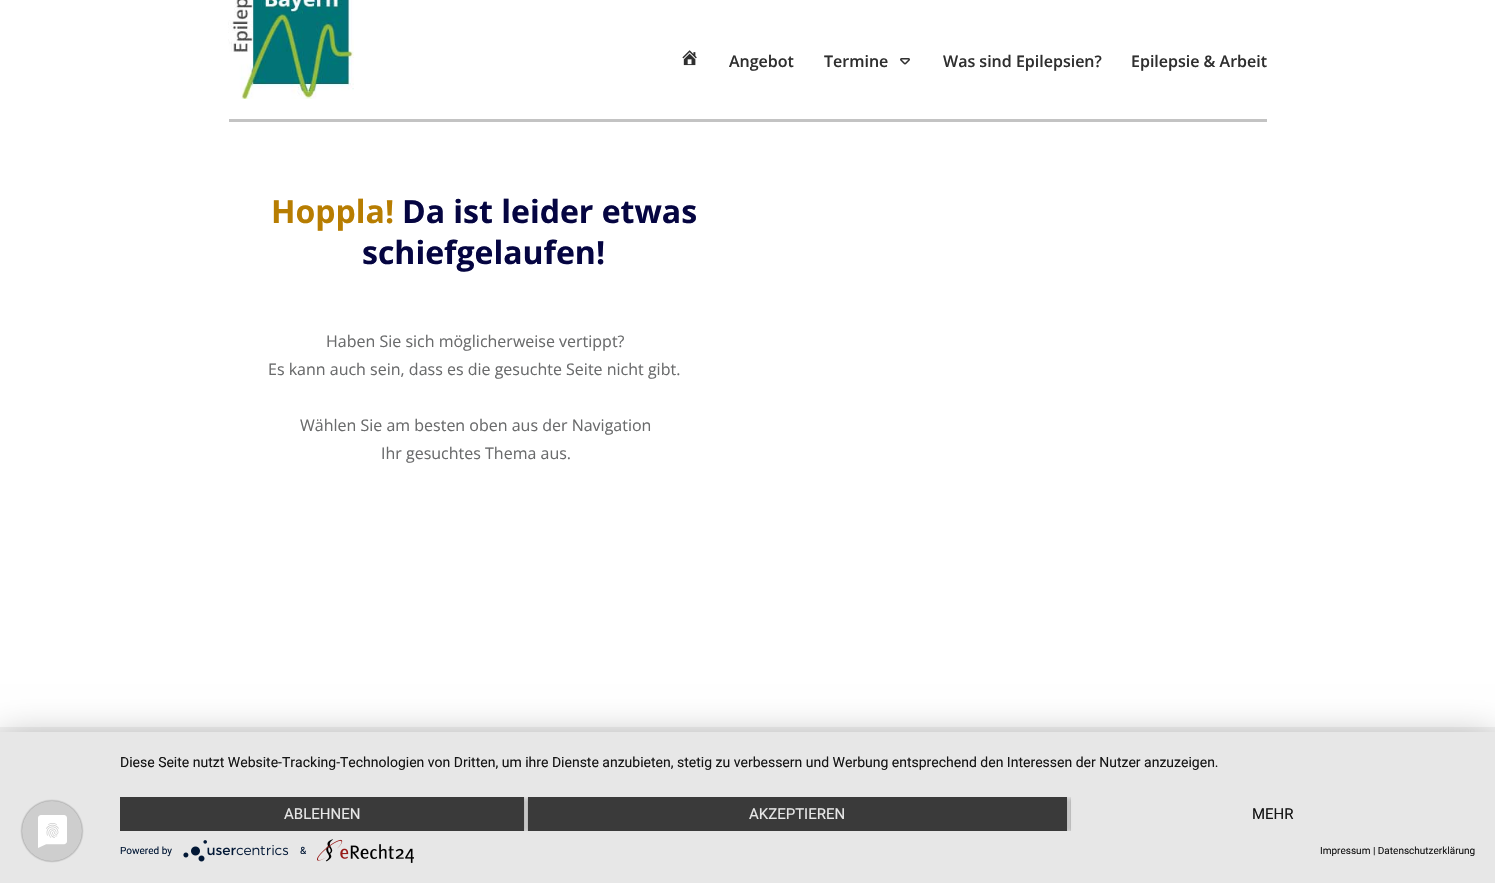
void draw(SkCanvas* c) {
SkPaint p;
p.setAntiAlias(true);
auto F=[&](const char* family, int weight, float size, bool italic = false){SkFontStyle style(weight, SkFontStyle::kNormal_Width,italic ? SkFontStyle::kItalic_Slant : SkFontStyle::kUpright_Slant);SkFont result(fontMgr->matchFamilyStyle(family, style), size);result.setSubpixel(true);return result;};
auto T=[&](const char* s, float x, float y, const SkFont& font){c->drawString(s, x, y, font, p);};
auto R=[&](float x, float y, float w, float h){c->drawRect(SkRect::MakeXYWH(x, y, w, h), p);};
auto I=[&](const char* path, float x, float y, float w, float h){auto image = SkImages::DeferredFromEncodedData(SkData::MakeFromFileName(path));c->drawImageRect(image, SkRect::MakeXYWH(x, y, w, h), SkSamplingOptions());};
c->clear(0xffffffff);
I("1.png",228,0,126,99);
I("2.png",682,50,15,16);
auto f1 = F("Open Sans",600,16);
p.setColor(0xff2f2f2f);
T("Angebot",729,67,f1);
T("Termine",824,67,f1);
I("3.png",900,58,10,7);
T("Was sind Epilepsien?",943,67,f1);
T("Epilepsie & Arbeit",1131,67,f1);
p.setColor(0xffc3c3c3);
R(229,119,1038,3);
auto f2 = F("Open Sans",700,32);
p.setColor(0xffb77d01);
T("Hoppla!",271,223,f2);
p.setColor(0xff050541);
T("Da ist leider etwas",402,223,f2);
T("schiefgelaufen!",362,264,f2);
auto f3 = F("Open Sans",400,16);
p.setColor(0xff6a6b6c);
T("Haben Sie sich möglicherweise vertippt?",326,347,f3);
T("Es kann auch sein, dass es die gesuchte Seite nicht gibt.",268,375,f3);
T("Wählen Sie am besten oben aus der Navigation",300,431,f3);
T("Ihr gesuchtes Thema aus.",381,459,f3);
p.setColor(0xfff2f2f2);
R(0,727,1495,5);
p.setColor(0x4d000000);
p.setMaskFilter(SkMaskFilter::MakeBlur(kNormal_SkBlurStyle, 18));
c->drawRect(SkRect::MakeXYWH(0,738,1495,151),p);
p.setMaskFilter(nullptr);
p.setColor(0xffe7e7e7);
R(0,732,1495,151);
I("4.png",20,799,64,64);
auto f4 = F("Roboto",400,14);
p.setColor(0xff161616);
T("Diese Seite nutzt Website-Tracking-Technologien von Dritten, um ihre Dienste anzubieten, stetig zu verbessern und Werbung entsprechend den Interessen der Nutzer anzuzeigen.",120,767,f4);
c->save();
c->clipRect(SkRect::MakeXYWH(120,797,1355,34));
p.setColor(0x66000000);
p.setMaskFilter(SkMaskFilter::MakeBlur(kNormal_SkBlurStyle, 2));
c->drawRect(SkRect::MakeXYWH(120,798,404,34),p);
p.setMaskFilter(nullptr);
c->restore();
p.setColor(0xff3a3a3a);
R(120,797,404,34);
auto f5 = F("Roboto",400,15);
p.setColor(0xffe7e7e7);
T("ABLEHNEN",284,819,f5);
c->save();
c->clipRect(SkRect::MakeXYWH(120,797,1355,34));
p.setColor(0x66000000);
p.setMaskFilter(SkMaskFilter::MakeBlur(kNormal_SkBlurStyle, 2));
c->drawRect(SkRect::MakeXYWH(528,798,539,34),p);
p.setMaskFilter(nullptr);
c->restore();
p.setColor(0xff3a3a3a);
R(528,797,539,34);
p.setColor(0xffe7e7e7);
T("AKZEPTIEREN",749,819,f5);
c->save();
c->clipRect(SkRect::MakeXYWH(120,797,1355,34));
c->clipRect(SkRect::MakeXYWH(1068,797,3,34));
p.setColor(0x66000000);
p.setMaskFilter(SkMaskFilter::MakeBlur(kNormal_SkBlurStyle, 2));
c->drawRect(SkRect::MakeXYWH(1071,798,404,34),p);
p.setMaskFilter(nullptr);
c->restore();
p.setColor(0xff161616);
T("MEHR",1252,819,f5);
auto f6 = F("Roboto",400,10);
p.setColor(0xff021836);
T("Powered by",120,854,f6);
I("5.png",183,840,106,22);
T("&",300,854,f6);
I("6.png",317,839,97,24);
p.setColor(0xff161616);
T("Impressum | Datenschutzerklärung",1320,854,f6);
}
